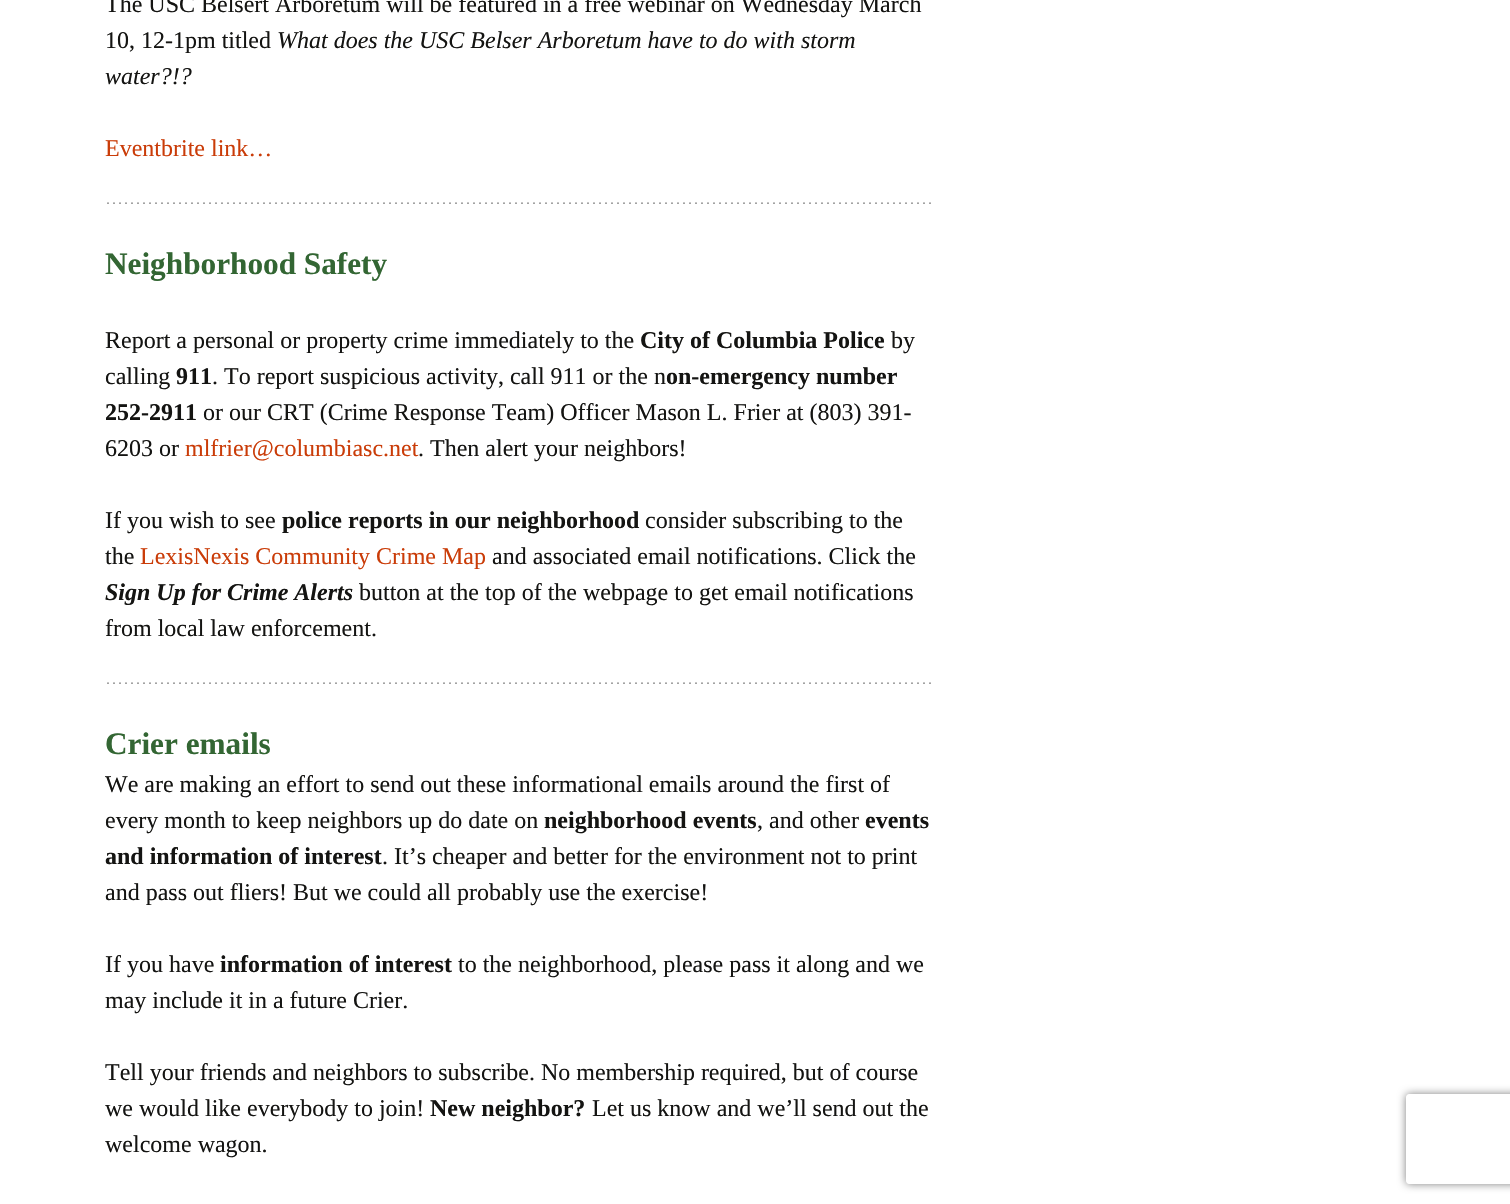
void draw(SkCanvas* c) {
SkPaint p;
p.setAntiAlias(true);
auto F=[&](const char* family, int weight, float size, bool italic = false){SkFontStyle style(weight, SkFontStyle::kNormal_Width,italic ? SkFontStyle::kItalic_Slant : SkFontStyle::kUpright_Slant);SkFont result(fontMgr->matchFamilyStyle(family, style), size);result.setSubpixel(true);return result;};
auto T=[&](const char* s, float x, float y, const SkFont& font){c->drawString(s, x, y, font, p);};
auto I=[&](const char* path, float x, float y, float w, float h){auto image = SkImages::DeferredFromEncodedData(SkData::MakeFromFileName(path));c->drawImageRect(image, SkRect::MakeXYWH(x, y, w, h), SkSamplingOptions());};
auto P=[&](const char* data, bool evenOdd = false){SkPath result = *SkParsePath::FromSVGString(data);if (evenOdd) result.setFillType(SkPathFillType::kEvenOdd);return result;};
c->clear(0xffffffff);
auto f1 = F("Liberation Serif",400,24);
p.setColor(0xff141412);
T("The USC Belsert Arboretum will be featured in a free webinar on Wednesday March",105,12,f1);
T("10, 12-1pm titled",105,48,f1);
auto f2 = F("Liberation Serif",400,24,true);
T("What does the USC Belser Arboretum have to do with storm",277,48,f2);
T("water?!?",105,84,f2);
p.setColor(0xffca3c08);
T("Eventbrite link…",105,156,f1);
I("1.png",107,202,824,2);
auto f3 = F("Liberation Serif",700,31.25);
p.setColor(0xff336633);
T("Neighborhood Safety",105,274,f3);
p.setColor(0xff141412);
T("Report a personal or property crime immediately to the",105,348,f1);
auto f4 = F("Liberation Serif",700,24);
T("City of Columbia Police",640,348,f4);
T("by",891,348,f1);
T("calling",105,384,f1);
T("911",176,384,f4);
T(". To report suspicious activity, call 911 or the n",212,384,f1);
T("on-emergency number",666,384,f4);
T("252-2911",105,420,f4);
T("or our CRT (Crime Response Team) Officer Mason L. Frier at (803) 391-",203,420,f1);
T("6203 or",105,456,f1);
p.setColor(0xffca3c08);
T("mlfrier@columbiasc.net",185,456,f1);
p.setColor(0xff141412);
T(". Then alert your neighbors!",418,456,f1);
T("If you wish to see",105,528,f1);
T("police reports in our neighborhood",282,528,f4);
T("consider subscribing to the",645,528,f1);
T("the",105,564,f1);
p.setColor(0xffca3c08);
T("LexisNexis Community Crime Map",140,564,f1);
p.setColor(0xff141412);
T("and associated email notifications. Click the",492,564,f1);
auto f5 = F("Liberation Serif",700,24,true);
T("Sign Up for Crime Alerts",105,600,f5);
T("button at the top of the webpage to get email notifications",359,600,f1);
T("from local law enforcement.",105,636,f1);
I("1.png",107,682,824,2);
p.setColor(0xff336633);
T("Crier emails",105,754,f3);
p.setColor(0xff141412);
T("We are making an effort to send out these informational emails around the first of",105,792,f1);
T("every month to keep neighbors up do date on",105,828,f1);
T("neighborhood events",544,828,f4);
T(", and other",757,828,f1);
T("events",865,828,f4);
T("and information of interest",105,864,f4);
T(". It’s cheaper and better for the environment not to print",382,864,f1);
T("and pass out fliers! But we could all probably use the exercise!",105,900,f1);
T("If you have",105,972,f1);
T("information of interest",220,972,f4);
T("to the neighborhood, please pass it along and we",458,972,f1);
T("may include it in a future Crier.",105,1008,f1);
T("Tell your friends and neighbors to subscribe. No membership required, but of course",105,1080,f1);
T("we would like everybody to join!",105,1116,f1);
T("New neighbor?",430,1116,f4);
T("Let us know and we’ll send out the",592,1116,f1);
T("welcome wagon.",105,1152,f1);
c->save();
c->clipPath(P("M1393 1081h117v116h-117zm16 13h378c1.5 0 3 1.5 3 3v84c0 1.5-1.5 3-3 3h-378c-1.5 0-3-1.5-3-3v-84c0-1.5 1.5-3 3-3z",true),true);
p.setColor(0xff808080);
p.setMaskFilter(SkMaskFilter::MakeBlur(kNormal_SkBlurStyle, 4));
c->drawRoundRect(SkRect::MakeXYWH(1406,1094,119,90),3,3,p);
p.setMaskFilter(nullptr);
c->restore();
}
